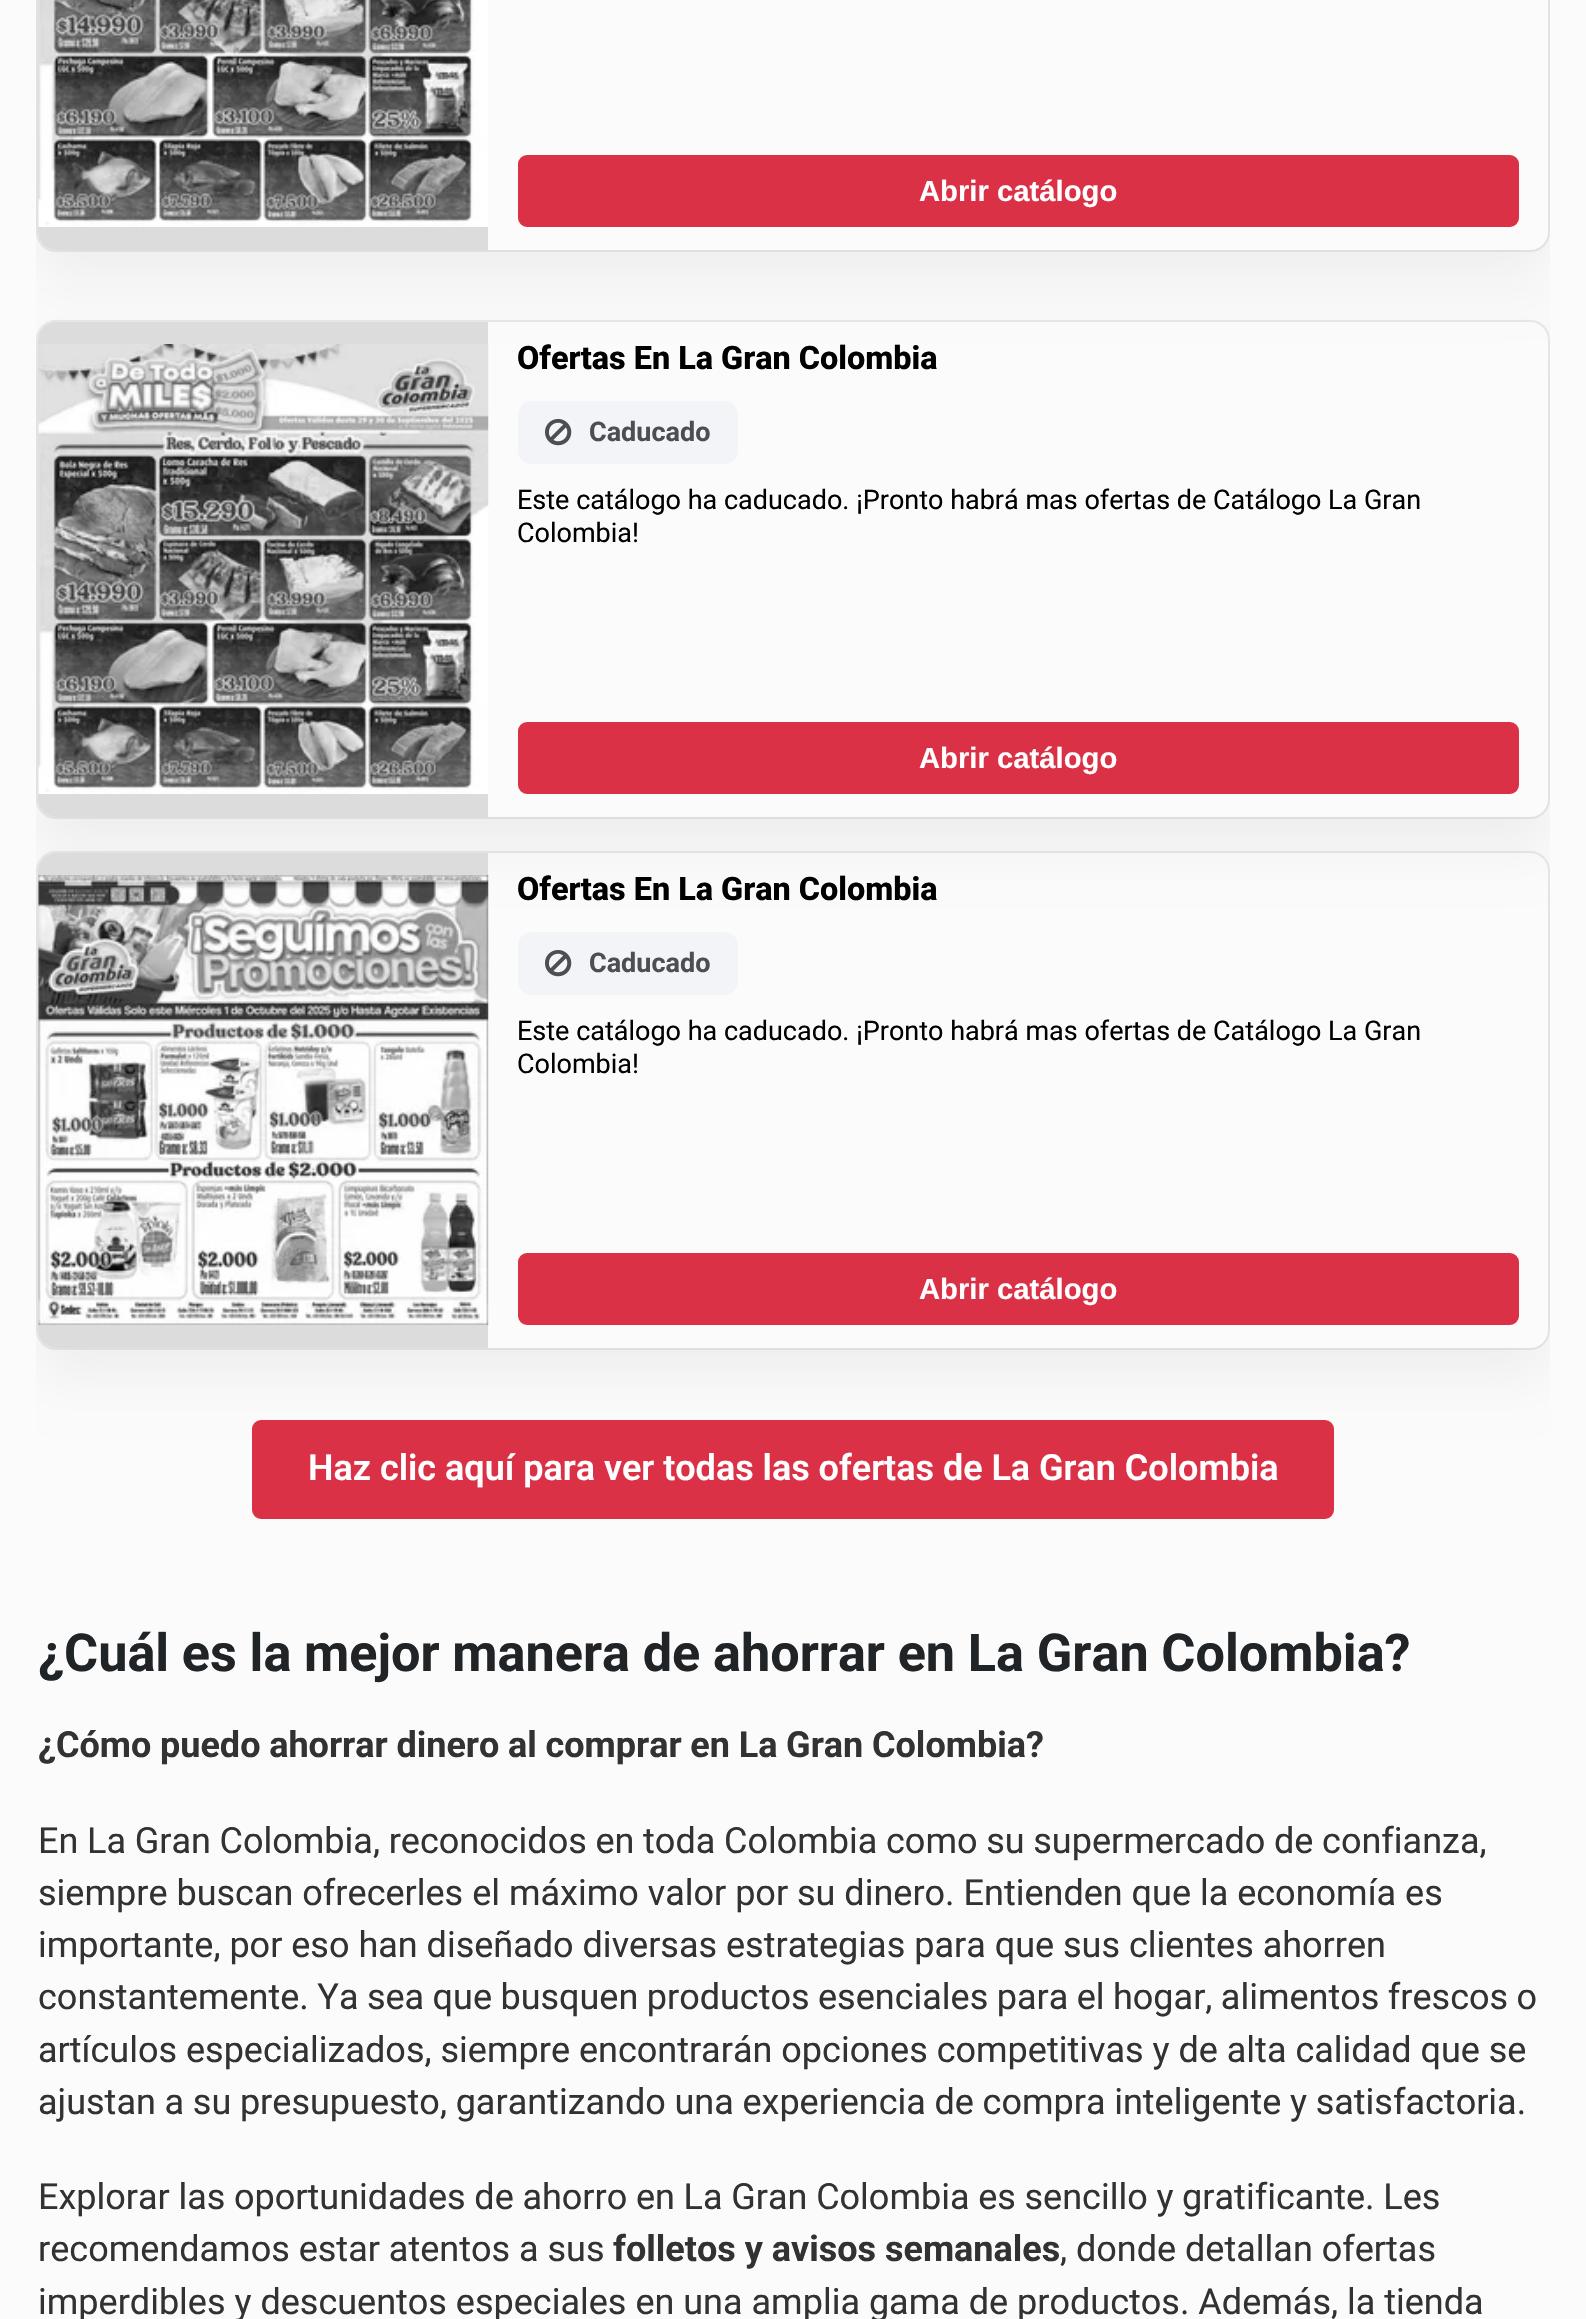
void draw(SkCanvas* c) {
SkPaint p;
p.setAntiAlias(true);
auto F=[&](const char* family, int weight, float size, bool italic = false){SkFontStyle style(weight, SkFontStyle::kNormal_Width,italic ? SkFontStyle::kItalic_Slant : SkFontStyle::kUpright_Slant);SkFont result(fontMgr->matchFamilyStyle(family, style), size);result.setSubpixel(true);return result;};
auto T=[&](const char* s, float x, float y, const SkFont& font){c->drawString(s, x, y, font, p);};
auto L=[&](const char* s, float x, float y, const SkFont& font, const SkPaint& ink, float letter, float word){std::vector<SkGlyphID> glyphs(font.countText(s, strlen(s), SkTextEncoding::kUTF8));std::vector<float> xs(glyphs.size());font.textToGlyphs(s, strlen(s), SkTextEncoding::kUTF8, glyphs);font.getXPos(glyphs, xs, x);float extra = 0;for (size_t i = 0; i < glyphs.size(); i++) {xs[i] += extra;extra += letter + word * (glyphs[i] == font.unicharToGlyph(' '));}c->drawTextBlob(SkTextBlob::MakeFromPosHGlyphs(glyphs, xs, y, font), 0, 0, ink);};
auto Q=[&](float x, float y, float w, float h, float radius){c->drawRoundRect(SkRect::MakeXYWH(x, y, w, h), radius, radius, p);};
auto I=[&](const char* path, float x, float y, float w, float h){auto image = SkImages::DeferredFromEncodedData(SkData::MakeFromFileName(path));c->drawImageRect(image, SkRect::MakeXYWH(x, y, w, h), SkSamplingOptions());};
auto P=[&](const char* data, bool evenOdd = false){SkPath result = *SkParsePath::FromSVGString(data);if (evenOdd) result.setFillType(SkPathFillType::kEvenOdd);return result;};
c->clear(0xfffbfbfb);
c->save();
c->clipRect(SkRect::MakeXYWH(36,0,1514,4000));
c->clipPath(P("M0 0h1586v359h-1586zm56-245h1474c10 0 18 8 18 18v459c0 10-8 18-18 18h-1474c-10 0-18-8-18-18v-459c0-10 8-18 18-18z",true),true);
p.setColor(0x0d000000);
p.setMaskFilter(SkMaskFilter::MakeBlur(kNormal_SkBlurStyle, 27));
c->drawRoundRect(SkRect::MakeXYWH(38,-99,1510,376),18,18,p);
p.setMaskFilter(nullptr);
c->restore();
p.setStroke(true);
p.setStrokeWidth(2);
p.setColor(0x12000000);
c->drawRoundRect(SkRect::MakeXYWH(37,-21,1512,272),19,19,p);
p.setStroke(false);
p.setColor(0xffdcdcdc);
c->drawPath(P("M56-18h432v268h-432c-10 0-18-8-18-18v-232c0-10 8-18 18-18z"),p);
I("1.png",38,0,450,227);
p.setColor(0xffdb3147);
c->drawRoundRect(SkRect::MakeXYWH(519,156,999,70),8,8,p);
p.setStroke(true);
c->drawRoundRect(SkRect::MakeXYWH(519,156,999,70),8,8,p);
auto f1 = F("Liberation Sans",700,29.25);
p.setStroke(false);
p.setColor(0xffffffff);
T("Abrir catálogo",919,201,f1);
c->save();
c->clipRect(SkRect::MakeXYWH(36,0,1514,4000));
c->clipPath(P("M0 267h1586v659h-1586zm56 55h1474c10 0 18 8 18 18v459c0 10-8 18-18 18h-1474c-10 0-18-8-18-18v-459c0-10 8-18 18-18z",true),true);
p.setColor(0x0d000000);
p.setMaskFilter(SkMaskFilter::MakeBlur(kNormal_SkBlurStyle, 27));
c->drawRoundRect(SkRect::MakeXYWH(38,349,1510,495),18,18,p);
p.setMaskFilter(nullptr);
c->restore();
p.setStroke(true);
p.setColor(0x12000000);
c->drawRoundRect(SkRect::MakeXYWH(37,321,1512,497),19,19,p);
p.setStroke(false);
p.setColor(0xffdb3147);
c->drawRoundRect(SkRect::MakeXYWH(253,1421,1080,97),8,8,p);
p.setStroke(true);
c->drawRoundRect(SkRect::MakeXYWH(253,1421,1080,97),8,8,p);
c->save();
c->clipRect(SkRect::MakeXYWH(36,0,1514,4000));
c->clipPath(P("M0 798h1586v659h-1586zm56 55h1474c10 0 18 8 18 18v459c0 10-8 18-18 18h-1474c-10 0-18-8-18-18v-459c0-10 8-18 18-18z",true),true);
p.setStroke(false);
p.setColor(0x0d000000);
p.setMaskFilter(SkMaskFilter::MakeBlur(kNormal_SkBlurStyle, 27));
c->drawRoundRect(SkRect::MakeXYWH(38,880,1510,495),18,18,p);
p.setMaskFilter(nullptr);
c->restore();
p.setColor(0xffdcdcdc);
c->drawPath(P("M56 322h432v495h-432c-10 0-18-8-18-18v-459c0-10 8-18 18-18z"),p);
I("2.png",38,344,451,450);
auto f2 = F("Roboto",800,32.4);
p.setColor(0xff000000);
T("Ofertas En La Gran Colombia",517,369,f2);
p.setColor(0xfff2f4f7);
Q(518,401,220,63,14);
I("3.png",545,419,27,27);
auto f3 = F("Roboto",700,27);
p.setColor(0xff4c4e54);
T("Caducado",589,441,f3);
auto f4 = F("Roboto",400,27);
p.setColor(0xff000000);
T("Este catálogo ha caducado. ¡Pronto habrá mas ofertas de Catálogo La Gran",517,509,f4);
T("Colombia!",517,542,f4);
p.setColor(0xffdb3147);
c->drawRoundRect(SkRect::MakeXYWH(519,723,999,70),8,8,p);
p.setStroke(true);
c->drawRoundRect(SkRect::MakeXYWH(519,723,999,70),8,8,p);
p.setStroke(false);
p.setColor(0xffffffff);
T("Abrir catálogo",919,768,f1);
p.setStroke(true);
p.setColor(0x12000000);
c->drawRoundRect(SkRect::MakeXYWH(37,852,1512,497),19,19,p);
p.setStroke(false);
p.setColor(0xffdcdcdc);
c->drawPath(P("M56 853h432v495h-432c-10 0-18-8-18-18v-459c0-10 8-18 18-18z"),p);
I("4.png",38,875,451,450);
p.setColor(0xff000000);
T("Ofertas En La Gran Colombia",517,900,f2);
p.setColor(0xfff2f4f7);
Q(518,932,220,63,14);
I("3.png",545,950,27,27);
p.setColor(0xff4c4e54);
T("Caducado",589,972,f3);
p.setColor(0xff000000);
T("Este catálogo ha caducado. ¡Pronto habrá mas ofertas de Catálogo La Gran",517,1040,f4);
T("Colombia!",517,1073,f4);
p.setColor(0xffdb3147);
c->drawRoundRect(SkRect::MakeXYWH(519,1254,999,70),8,8,p);
p.setStroke(true);
c->drawRoundRect(SkRect::MakeXYWH(519,1254,999,70),8,8,p);
p.setStroke(false);
p.setColor(0xffffffff);
T("Abrir catálogo",919,1299,f1);
auto f5 = F("Roboto",600,36);
L("Haz clic aquí para ver todas las ofertas de La Gran Colombia",308,1480,f5,p,0,-.1);
auto f6 = F("Roboto",700,52.2);
p.setColor(0xff212427);
L("¿Cuál es la mejor manera de ahorrar en La Gran Colombia?",38,1671,f6,p,0,-.25);
auto f7 = F("Roboto",700,36);
p.setColor(0xff323232);
L("¿Cómo puedo ahorrar dinero al comprar en La Gran Colombia?",38,1757,f7,p,0,-.25);
auto f8 = F("Roboto",400,36);
L("En La Gran Colombia, reconocidos en toda Colombia como su supermercado de confianza,",38,1853,f8,p,0,-.25);
T("siempre buscan ofrecerles el máximo valor por su dinero. Entienden que la economía es",38,1905,f8);
T("importante, por eso han diseñado diversas estrategias para que sus clientes ahorren",38,1957,f8);
L("constantemente. Ya sea que busquen productos esenciales para el hogar, alimentos frescos o",38,2009,f8,p,0,-.5);
T("artículos especializados, siempre encontrarán opciones competitivas y de alta calidad que se",38,2062,f8);
L("ajustan a su presupuesto, garantizando una experiencia de compra inteligente y satisfactoria.",38,2114,f8,p,0,-.25);
L("Explorar las oportunidades de ahorro en La Gran Colombia es sencillo y gratificante. Les",38,2209,f8,p,0,-.25);
T("recomendamos estar atentos a sus",38,2261,f8);
T("folletos y avisos semanales",613,2261,f7);
T(", donde detallan ofertas",1060,2261,f8);
T("imperdibles y descuentos especiales en una amplia gama de productos. Además, la tienda",38,2314,f8);
}
